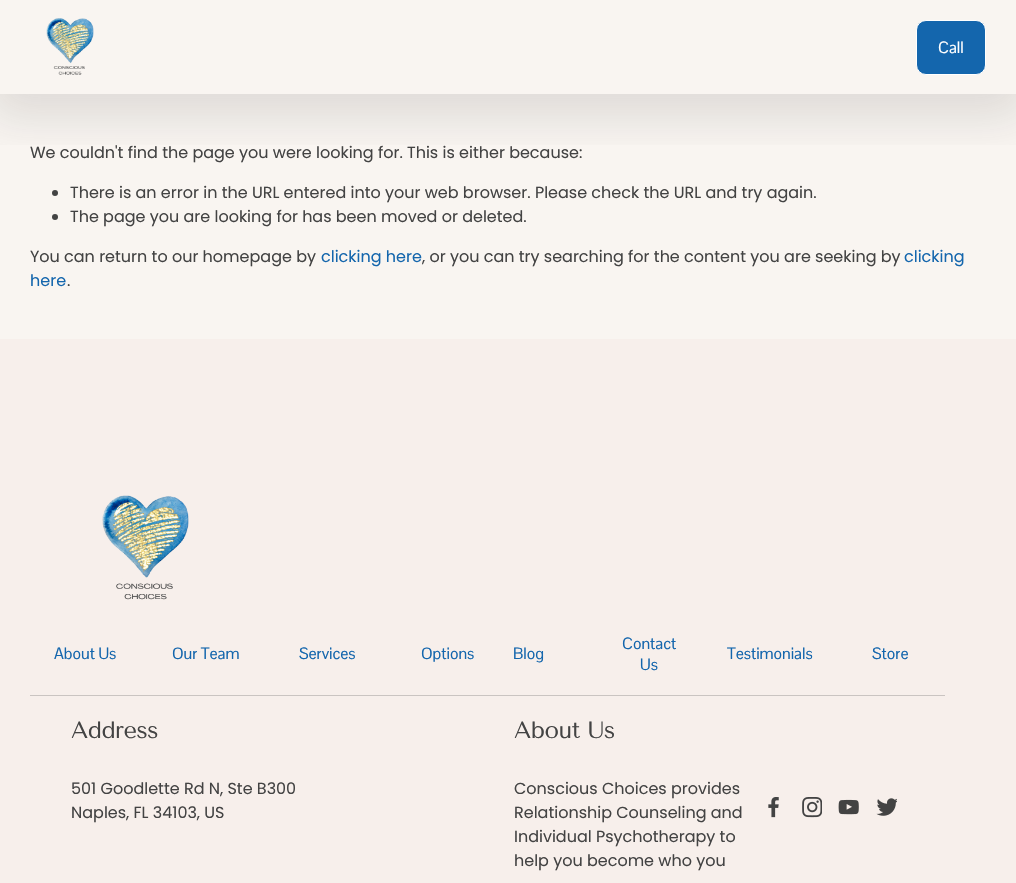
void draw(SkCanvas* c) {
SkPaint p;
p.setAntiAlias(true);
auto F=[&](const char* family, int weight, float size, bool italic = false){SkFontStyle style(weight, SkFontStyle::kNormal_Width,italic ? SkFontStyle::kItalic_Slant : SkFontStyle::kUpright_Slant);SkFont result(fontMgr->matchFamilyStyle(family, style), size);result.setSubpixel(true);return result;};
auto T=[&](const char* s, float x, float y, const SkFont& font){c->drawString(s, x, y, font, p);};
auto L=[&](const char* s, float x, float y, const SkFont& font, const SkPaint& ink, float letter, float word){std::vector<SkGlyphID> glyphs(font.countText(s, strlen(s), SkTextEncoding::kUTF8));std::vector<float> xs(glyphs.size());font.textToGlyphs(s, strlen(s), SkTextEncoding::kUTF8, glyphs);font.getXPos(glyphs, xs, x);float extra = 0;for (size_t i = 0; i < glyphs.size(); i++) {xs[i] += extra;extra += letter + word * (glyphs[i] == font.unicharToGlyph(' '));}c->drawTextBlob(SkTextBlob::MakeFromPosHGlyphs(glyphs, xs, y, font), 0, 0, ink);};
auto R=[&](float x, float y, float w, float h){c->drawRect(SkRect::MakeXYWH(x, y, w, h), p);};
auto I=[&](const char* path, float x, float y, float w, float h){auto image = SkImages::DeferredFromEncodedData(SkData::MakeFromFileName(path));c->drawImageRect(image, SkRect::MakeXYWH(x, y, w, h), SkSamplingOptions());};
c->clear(0xfff9f5f1);
p.setColor(0xff434343);
c->drawCircle(55,193,3,p);
c->save();
c->clipRect(SkRect::MakeXYWH(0,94,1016,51));
p.setColor(0x26434343);
p.setMaskFilter(SkMaskFilter::MakeBlur(kNormal_SkBlurStyle, 24));
c->drawRect(SkRect::MakeXYWH(-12,0,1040,118),p);
p.setMaskFilter(nullptr);
c->restore();
I("1.png",46,18,48,57);
p.setColor(0xff1466ad);
c->drawRoundRect(SkRect::MakeXYWH(916.5,20.5,69,54),9.5,9.5,p);
p.setStroke(true);
p.setStrokeWidth(1);
p.setColor(0xffffffff);
c->drawRoundRect(SkRect::MakeXYWH(916.5,20.5,69,54),9.5,9.5,p);
auto f1 = F("Pontano Sans",400,16);
p.setStroke(false);
T("Call",938,53,f1);
auto f2 = F("Poppins",400,16);
p.setColor(0xff434343);
T("We couldn't find the page you were looking for. This is either because:",30,158,f2);
T("There is an error in the URL entered into your web browser. Please check the URL and try again.",70,198,f2);
c->drawCircle(55,217,3,p);
T("The page you are looking for has been moved or deleted.",70,222,f2);
T("You can return to our homepage by",30,262,f2);
p.setColor(0xff1466ad);
T("clicking here",321,262,f2);
p.setColor(0xff434343);
T(", or you can try searching for the content you are seeking by",422,262,f2);
p.setColor(0xff1466ad);
T("clicking",904,262,f2);
T("here",30,286,f2);
p.setColor(0xff434343);
T(".",67,286,f2);
p.setColor(0xfff7efeb);
R(0,339,1016,544);
I("2.png",102,495,87,105);
p.setColor(0xff1466ad);
T("About Us",54,659,f1);
T("Our Team",172,659,f1);
T("Services",299,659,f1);
T("Options",421,659,f1);
T("Blog",513,659,f1);
T("Contact",622,649,f1);
T("Us",640,670,f1);
T("Testimonials",727,659,f1);
T("Store",872,659,f1);
p.setColor(0xffcac4c1);
R(30,695,915,1);
auto f3 = F("Tenor Sans",400,23.5);
p.setColor(0xff434343);
L("Address",71,738,f3,p,-.5,0);
T("501 Goodlette Rd N, Ste B300",71,794,f2);
T("Naples, FL 34103, US",71,818,f2);
L("About Us",514,738,f3,p,-.5,0);
T("Conscious Choices provides",514,794,f2);
T("Relationship Counseling and",514,818,f2);
T("Individual Psychotherapy to",514,842,f2);
T("help you become who you",514,866,f2);
I("3.png",768,797,11,21);
I("4.png",802,797,20,21);
I("5.png",838,799,21,16);
I("6.png",876,798,21,18);
}
